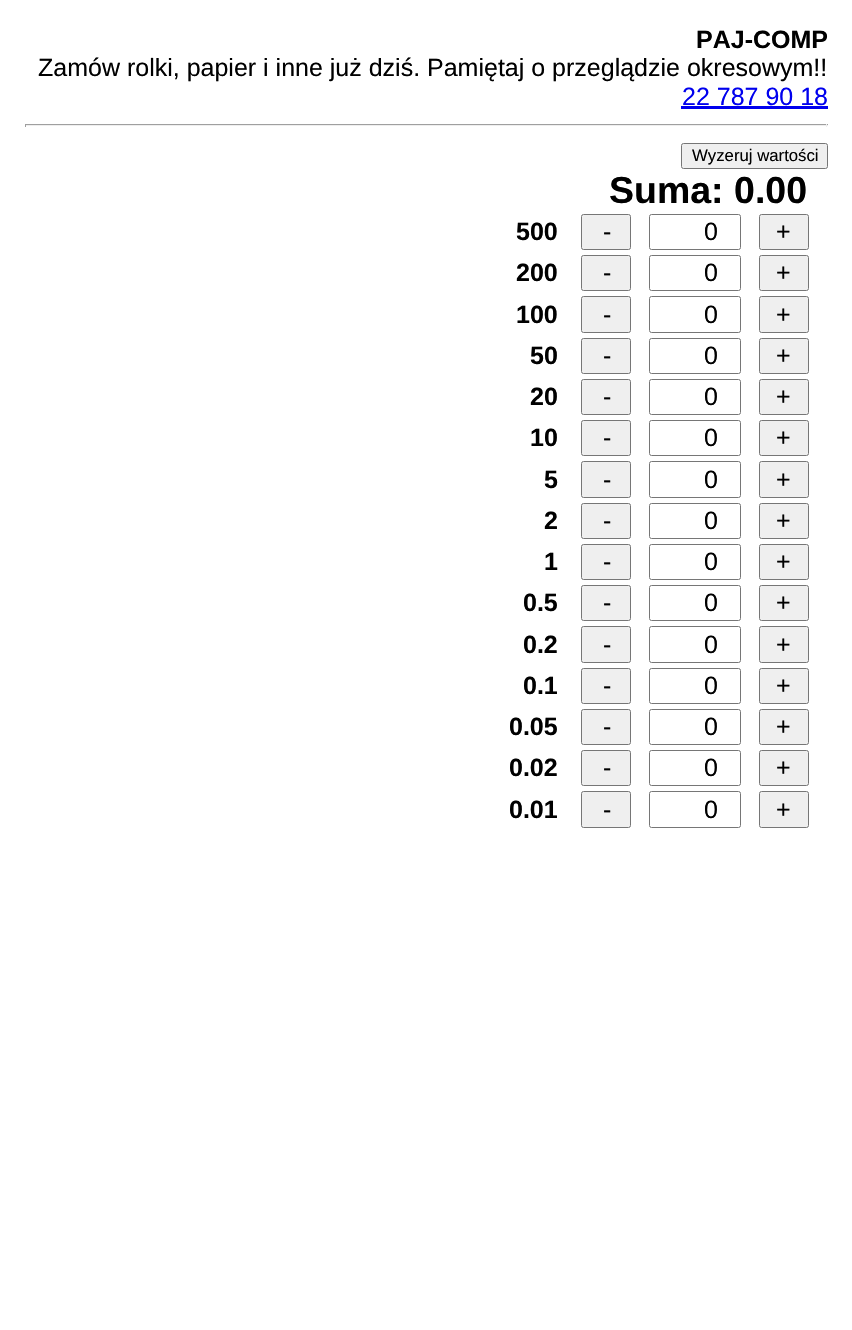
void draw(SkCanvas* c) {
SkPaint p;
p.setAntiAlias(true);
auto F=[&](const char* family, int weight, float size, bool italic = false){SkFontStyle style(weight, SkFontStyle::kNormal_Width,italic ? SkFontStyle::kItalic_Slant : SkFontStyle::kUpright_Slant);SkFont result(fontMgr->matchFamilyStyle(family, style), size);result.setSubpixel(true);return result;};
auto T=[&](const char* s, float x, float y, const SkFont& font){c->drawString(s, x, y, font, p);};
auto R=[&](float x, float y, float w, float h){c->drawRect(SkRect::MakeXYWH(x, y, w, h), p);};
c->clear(0xffffffff);
auto f1 = F("Liberation Sans",700,25);
p.setColor(0xff000000);
T("PAJ-COMP",696,48,f1);
auto f2 = F("Liberation Sans",400,25);
T("Zamów rolki, papier i inne już dziś. Pamiętaj o przeglądzie okresowym!!",38,76,f2);
p.setColor(0xff0000ee);
T("22 787 90 18",682,105,f2);
R(681,106,147,3);
p.setColor(0xff9f9f9f);
R(25,124,803,1);
p.setColor(0xffeeeeee);
R(826,124,1,3);
R(25,125,803,1);
p.setColor(0xff9f9f9f);
R(25,124,1,3);
p.setColor(0xffefefef);
c->drawRoundRect(SkRect::MakeXYWH(681.5,143.5,146,25),2,2,p);
p.setStroke(true);
p.setStrokeWidth(1);
p.setColor(0xff767676);
c->drawRoundRect(SkRect::MakeXYWH(681.5,143.5,146,25),2,2,p);
auto f3 = F("Liberation Sans",400,16.75);
p.setStroke(false);
p.setColor(0xff000000);
T("Wyzeruj wartości",692,161,f3);
auto f4 = F("Liberation Sans",700,37.5);
T("Suma: 0.00",609,203,f4);
T("500",516,240,f1);
p.setColor(0xffefefef);
c->drawRoundRect(SkRect::MakeXYWH(581.5,214.5,49,35),2,2,p);
p.setStroke(true);
p.setColor(0xff767676);
c->drawRoundRect(SkRect::MakeXYWH(581.5,214.5,49,35),2,2,p);
p.setStroke(false);
p.setColor(0xff000000);
T("-",603,240,f2);
p.setStroke(true);
p.setColor(0xff767676);
c->drawRoundRect(SkRect::MakeXYWH(649.5,214.5,91,35),2,2,p);
p.setStroke(false);
p.setColor(0xff000000);
T("0",704,240,f2);
p.setColor(0xffefefef);
c->drawRoundRect(SkRect::MakeXYWH(759.5,214.5,49,35),2,2,p);
p.setStroke(true);
p.setColor(0xff767676);
c->drawRoundRect(SkRect::MakeXYWH(759.5,214.5,49,35),2,2,p);
p.setStroke(false);
p.setColor(0xff000000);
T("+",776,240,f2);
T("200",516,281,f1);
p.setColor(0xffefefef);
c->drawRoundRect(SkRect::MakeXYWH(581.5,255.5,49,35),2,2,p);
p.setStroke(true);
p.setColor(0xff767676);
c->drawRoundRect(SkRect::MakeXYWH(581.5,255.5,49,35),2,2,p);
p.setStroke(false);
p.setColor(0xff000000);
T("-",603,281,f2);
p.setStroke(true);
p.setColor(0xff767676);
c->drawRoundRect(SkRect::MakeXYWH(649.5,255.5,91,35),2,2,p);
p.setStroke(false);
p.setColor(0xff000000);
T("0",704,281,f2);
p.setColor(0xffefefef);
c->drawRoundRect(SkRect::MakeXYWH(759.5,255.5,49,35),2,2,p);
p.setStroke(true);
p.setColor(0xff767676);
c->drawRoundRect(SkRect::MakeXYWH(759.5,255.5,49,35),2,2,p);
p.setStroke(false);
p.setColor(0xff000000);
T("+",776,281,f2);
T("100",516,323,f1);
p.setColor(0xffefefef);
c->drawRoundRect(SkRect::MakeXYWH(581.5,296.5,49,36),2,2,p);
p.setStroke(true);
p.setColor(0xff767676);
c->drawRoundRect(SkRect::MakeXYWH(581.5,296.5,49,36),2,2,p);
p.setStroke(false);
p.setColor(0xff000000);
T("-",603,323,f2);
p.setStroke(true);
p.setColor(0xff767676);
c->drawRoundRect(SkRect::MakeXYWH(649.5,296.5,91,36),2,2,p);
p.setStroke(false);
p.setColor(0xff000000);
T("0",704,323,f2);
p.setColor(0xffefefef);
c->drawRoundRect(SkRect::MakeXYWH(759.5,296.5,49,36),2,2,p);
p.setStroke(true);
p.setColor(0xff767676);
c->drawRoundRect(SkRect::MakeXYWH(759.5,296.5,49,36),2,2,p);
p.setStroke(false);
p.setColor(0xff000000);
T("+",776,323,f2);
T("50",530,364,f1);
p.setColor(0xffefefef);
c->drawRoundRect(SkRect::MakeXYWH(581.5,338.5,49,35),2,2,p);
p.setStroke(true);
p.setColor(0xff767676);
c->drawRoundRect(SkRect::MakeXYWH(581.5,338.5,49,35),2,2,p);
p.setStroke(false);
p.setColor(0xff000000);
T("-",603,364,f2);
p.setStroke(true);
p.setColor(0xff767676);
c->drawRoundRect(SkRect::MakeXYWH(649.5,338.5,91,35),2,2,p);
p.setStroke(false);
p.setColor(0xff000000);
T("0",704,364,f2);
p.setColor(0xffefefef);
c->drawRoundRect(SkRect::MakeXYWH(759.5,338.5,49,35),2,2,p);
p.setStroke(true);
p.setColor(0xff767676);
c->drawRoundRect(SkRect::MakeXYWH(759.5,338.5,49,35),2,2,p);
p.setStroke(false);
p.setColor(0xff000000);
T("+",776,364,f2);
T("20",530,405,f1);
p.setColor(0xffefefef);
c->drawRoundRect(SkRect::MakeXYWH(581.5,379.5,49,35),2,2,p);
p.setStroke(true);
p.setColor(0xff767676);
c->drawRoundRect(SkRect::MakeXYWH(581.5,379.5,49,35),2,2,p);
p.setStroke(false);
p.setColor(0xff000000);
T("-",603,405,f2);
p.setStroke(true);
p.setColor(0xff767676);
c->drawRoundRect(SkRect::MakeXYWH(649.5,379.5,91,35),2,2,p);
p.setStroke(false);
p.setColor(0xff000000);
T("0",704,405,f2);
p.setColor(0xffefefef);
c->drawRoundRect(SkRect::MakeXYWH(759.5,379.5,49,35),2,2,p);
p.setStroke(true);
p.setColor(0xff767676);
c->drawRoundRect(SkRect::MakeXYWH(759.5,379.5,49,35),2,2,p);
p.setStroke(false);
p.setColor(0xff000000);
T("+",776,405,f2);
T("10",530,446,f1);
p.setColor(0xffefefef);
c->drawRoundRect(SkRect::MakeXYWH(581.5,420.5,49,35),2,2,p);
p.setStroke(true);
p.setColor(0xff767676);
c->drawRoundRect(SkRect::MakeXYWH(581.5,420.5,49,35),2,2,p);
p.setStroke(false);
p.setColor(0xff000000);
T("-",603,446,f2);
p.setStroke(true);
p.setColor(0xff767676);
c->drawRoundRect(SkRect::MakeXYWH(649.5,420.5,91,35),2,2,p);
p.setStroke(false);
p.setColor(0xff000000);
T("0",704,446,f2);
p.setColor(0xffefefef);
c->drawRoundRect(SkRect::MakeXYWH(759.5,420.5,49,35),2,2,p);
p.setStroke(true);
p.setColor(0xff767676);
c->drawRoundRect(SkRect::MakeXYWH(759.5,420.5,49,35),2,2,p);
p.setStroke(false);
p.setColor(0xff000000);
T("+",776,446,f2);
T("5",544,488,f1);
p.setColor(0xffefefef);
c->drawRoundRect(SkRect::MakeXYWH(581.5,461.5,49,36),2,2,p);
p.setStroke(true);
p.setColor(0xff767676);
c->drawRoundRect(SkRect::MakeXYWH(581.5,461.5,49,36),2,2,p);
p.setStroke(false);
p.setColor(0xff000000);
T("-",603,488,f2);
p.setStroke(true);
p.setColor(0xff767676);
c->drawRoundRect(SkRect::MakeXYWH(649.5,461.5,91,36),2,2,p);
p.setStroke(false);
p.setColor(0xff000000);
T("0",704,488,f2);
p.setColor(0xffefefef);
c->drawRoundRect(SkRect::MakeXYWH(759.5,461.5,49,36),2,2,p);
p.setStroke(true);
p.setColor(0xff767676);
c->drawRoundRect(SkRect::MakeXYWH(759.5,461.5,49,36),2,2,p);
p.setStroke(false);
p.setColor(0xff000000);
T("+",776,488,f2);
T("2",544,529,f1);
p.setColor(0xffefefef);
c->drawRoundRect(SkRect::MakeXYWH(581.5,503.5,49,35),2,2,p);
p.setStroke(true);
p.setColor(0xff767676);
c->drawRoundRect(SkRect::MakeXYWH(581.5,503.5,49,35),2,2,p);
p.setStroke(false);
p.setColor(0xff000000);
T("-",603,529,f2);
p.setStroke(true);
p.setColor(0xff767676);
c->drawRoundRect(SkRect::MakeXYWH(649.5,503.5,91,35),2,2,p);
p.setStroke(false);
p.setColor(0xff000000);
T("0",704,529,f2);
p.setColor(0xffefefef);
c->drawRoundRect(SkRect::MakeXYWH(759.5,503.5,49,35),2,2,p);
p.setStroke(true);
p.setColor(0xff767676);
c->drawRoundRect(SkRect::MakeXYWH(759.5,503.5,49,35),2,2,p);
p.setStroke(false);
p.setColor(0xff000000);
T("+",776,529,f2);
T("1",544,570,f1);
p.setColor(0xffefefef);
c->drawRoundRect(SkRect::MakeXYWH(581.5,544.5,49,35),2,2,p);
p.setStroke(true);
p.setColor(0xff767676);
c->drawRoundRect(SkRect::MakeXYWH(581.5,544.5,49,35),2,2,p);
p.setStroke(false);
p.setColor(0xff000000);
T("-",603,570,f2);
p.setStroke(true);
p.setColor(0xff767676);
c->drawRoundRect(SkRect::MakeXYWH(649.5,544.5,91,35),2,2,p);
p.setStroke(false);
p.setColor(0xff000000);
T("0",704,570,f2);
p.setColor(0xffefefef);
c->drawRoundRect(SkRect::MakeXYWH(759.5,544.5,49,35),2,2,p);
p.setStroke(true);
p.setColor(0xff767676);
c->drawRoundRect(SkRect::MakeXYWH(759.5,544.5,49,35),2,2,p);
p.setStroke(false);
p.setColor(0xff000000);
T("+",776,570,f2);
T("0.5",523,611,f1);
p.setColor(0xffefefef);
c->drawRoundRect(SkRect::MakeXYWH(581.5,585.5,49,35),2,2,p);
p.setStroke(true);
p.setColor(0xff767676);
c->drawRoundRect(SkRect::MakeXYWH(581.5,585.5,49,35),2,2,p);
p.setStroke(false);
p.setColor(0xff000000);
T("-",603,611,f2);
p.setStroke(true);
p.setColor(0xff767676);
c->drawRoundRect(SkRect::MakeXYWH(649.5,585.5,91,35),2,2,p);
p.setStroke(false);
p.setColor(0xff000000);
T("0",704,611,f2);
p.setColor(0xffefefef);
c->drawRoundRect(SkRect::MakeXYWH(759.5,585.5,49,35),2,2,p);
p.setStroke(true);
p.setColor(0xff767676);
c->drawRoundRect(SkRect::MakeXYWH(759.5,585.5,49,35),2,2,p);
p.setStroke(false);
p.setColor(0xff000000);
T("+",776,611,f2);
T("0.2",523,653,f1);
p.setColor(0xffefefef);
c->drawRoundRect(SkRect::MakeXYWH(581.5,626.5,49,36),2,2,p);
p.setStroke(true);
p.setColor(0xff767676);
c->drawRoundRect(SkRect::MakeXYWH(581.5,626.5,49,36),2,2,p);
p.setStroke(false);
p.setColor(0xff000000);
T("-",603,653,f2);
p.setStroke(true);
p.setColor(0xff767676);
c->drawRoundRect(SkRect::MakeXYWH(649.5,626.5,91,36),2,2,p);
p.setStroke(false);
p.setColor(0xff000000);
T("0",704,653,f2);
p.setColor(0xffefefef);
c->drawRoundRect(SkRect::MakeXYWH(759.5,626.5,49,36),2,2,p);
p.setStroke(true);
p.setColor(0xff767676);
c->drawRoundRect(SkRect::MakeXYWH(759.5,626.5,49,36),2,2,p);
p.setStroke(false);
p.setColor(0xff000000);
T("+",776,653,f2);
T("0.1",523,694,f1);
p.setColor(0xffefefef);
c->drawRoundRect(SkRect::MakeXYWH(581.5,668.5,49,35),2,2,p);
p.setStroke(true);
p.setColor(0xff767676);
c->drawRoundRect(SkRect::MakeXYWH(581.5,668.5,49,35),2,2,p);
p.setStroke(false);
p.setColor(0xff000000);
T("-",603,694,f2);
p.setStroke(true);
p.setColor(0xff767676);
c->drawRoundRect(SkRect::MakeXYWH(649.5,668.5,91,35),2,2,p);
p.setStroke(false);
p.setColor(0xff000000);
T("0",704,694,f2);
p.setColor(0xffefefef);
c->drawRoundRect(SkRect::MakeXYWH(759.5,668.5,49,35),2,2,p);
p.setStroke(true);
p.setColor(0xff767676);
c->drawRoundRect(SkRect::MakeXYWH(759.5,668.5,49,35),2,2,p);
p.setStroke(false);
p.setColor(0xff000000);
T("+",776,694,f2);
T("0.05",509,735,f1);
p.setColor(0xffefefef);
c->drawRoundRect(SkRect::MakeXYWH(581.5,709.5,49,35),2,2,p);
p.setStroke(true);
p.setColor(0xff767676);
c->drawRoundRect(SkRect::MakeXYWH(581.5,709.5,49,35),2,2,p);
p.setStroke(false);
p.setColor(0xff000000);
T("-",603,735,f2);
p.setStroke(true);
p.setColor(0xff767676);
c->drawRoundRect(SkRect::MakeXYWH(649.5,709.5,91,35),2,2,p);
p.setStroke(false);
p.setColor(0xff000000);
T("0",704,735,f2);
p.setColor(0xffefefef);
c->drawRoundRect(SkRect::MakeXYWH(759.5,709.5,49,35),2,2,p);
p.setStroke(true);
p.setColor(0xff767676);
c->drawRoundRect(SkRect::MakeXYWH(759.5,709.5,49,35),2,2,p);
p.setStroke(false);
p.setColor(0xff000000);
T("+",776,735,f2);
T("0.02",509,776,f1);
p.setColor(0xffefefef);
c->drawRoundRect(SkRect::MakeXYWH(581.5,750.5,49,35),2,2,p);
p.setStroke(true);
p.setColor(0xff767676);
c->drawRoundRect(SkRect::MakeXYWH(581.5,750.5,49,35),2,2,p);
p.setStroke(false);
p.setColor(0xff000000);
T("-",603,776,f2);
p.setStroke(true);
p.setColor(0xff767676);
c->drawRoundRect(SkRect::MakeXYWH(649.5,750.5,91,35),2,2,p);
p.setStroke(false);
p.setColor(0xff000000);
T("0",704,776,f2);
p.setColor(0xffefefef);
c->drawRoundRect(SkRect::MakeXYWH(759.5,750.5,49,35),2,2,p);
p.setStroke(true);
p.setColor(0xff767676);
c->drawRoundRect(SkRect::MakeXYWH(759.5,750.5,49,35),2,2,p);
p.setStroke(false);
p.setColor(0xff000000);
T("+",776,776,f2);
T("0.01",509,818,f1);
p.setColor(0xffefefef);
c->drawRoundRect(SkRect::MakeXYWH(581.5,791.5,49,36),2,2,p);
p.setStroke(true);
p.setColor(0xff767676);
c->drawRoundRect(SkRect::MakeXYWH(581.5,791.5,49,36),2,2,p);
p.setStroke(false);
p.setColor(0xff000000);
T("-",603,818,f2);
p.setStroke(true);
p.setColor(0xff767676);
c->drawRoundRect(SkRect::MakeXYWH(649.5,791.5,91,36),2,2,p);
p.setStroke(false);
p.setColor(0xff000000);
T("0",704,818,f2);
p.setColor(0xffefefef);
c->drawRoundRect(SkRect::MakeXYWH(759.5,791.5,49,36),2,2,p);
p.setStroke(true);
p.setColor(0xff767676);
c->drawRoundRect(SkRect::MakeXYWH(759.5,791.5,49,36),2,2,p);
p.setStroke(false);
p.setColor(0xff000000);
T("+",776,818,f2);
}
